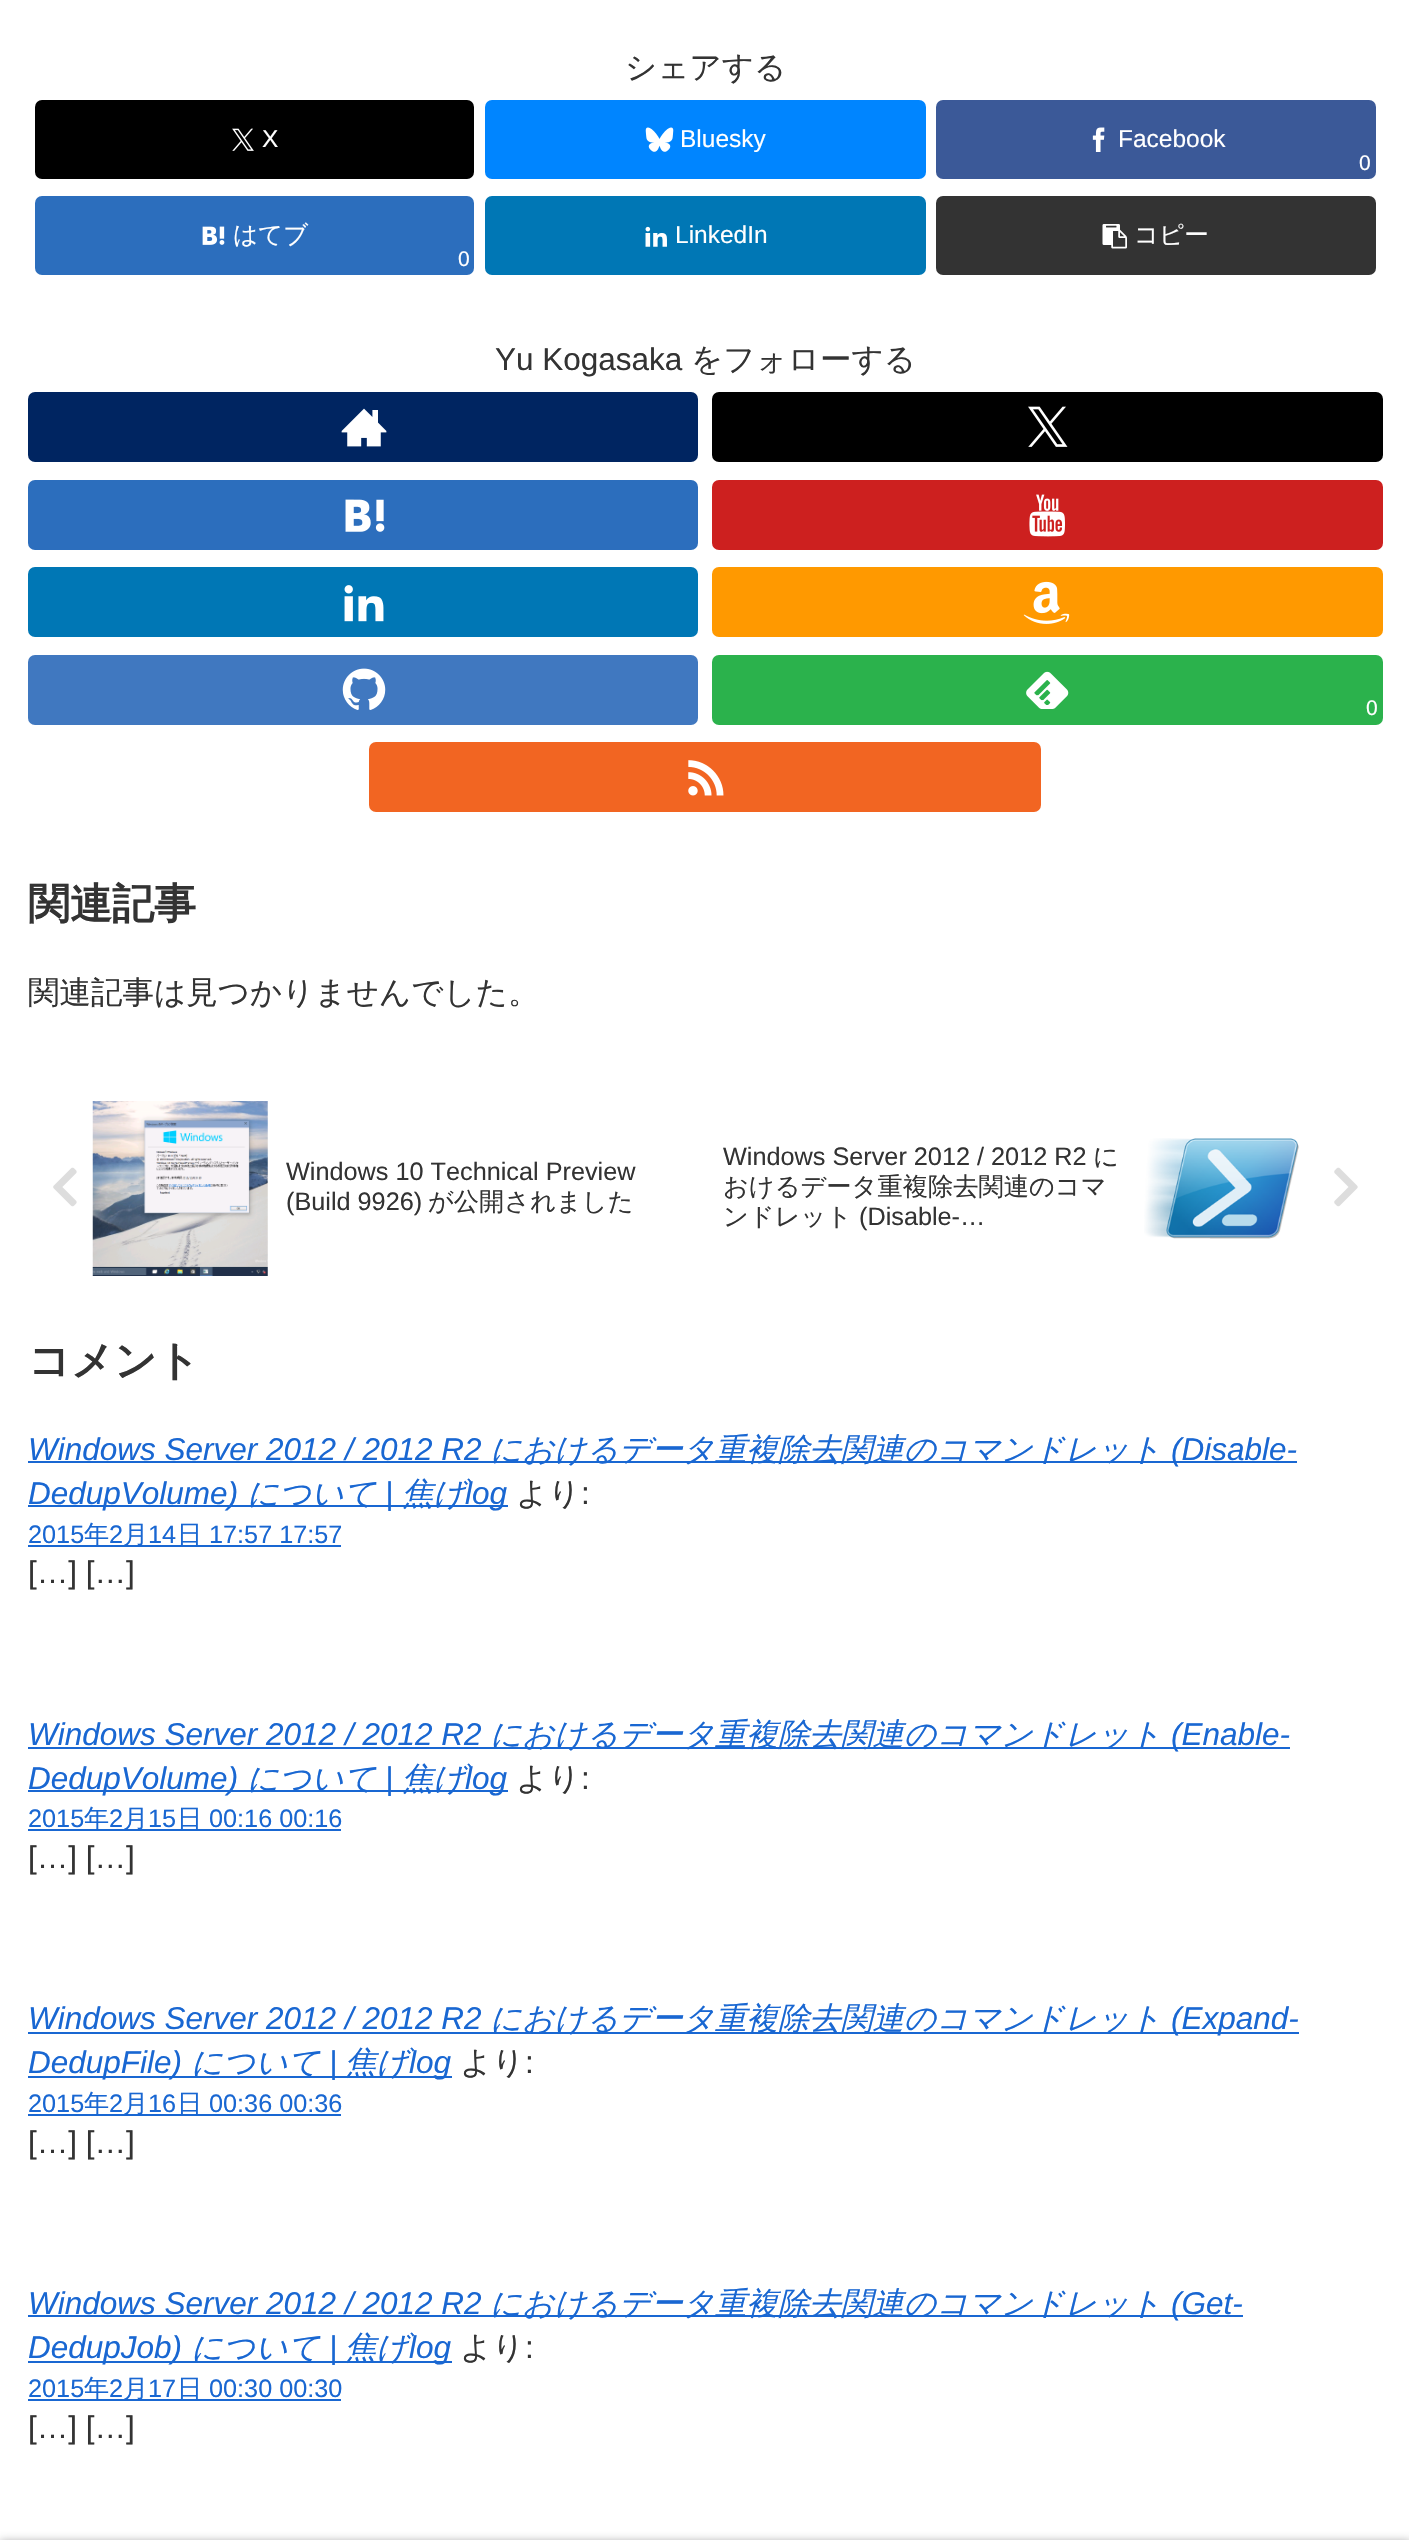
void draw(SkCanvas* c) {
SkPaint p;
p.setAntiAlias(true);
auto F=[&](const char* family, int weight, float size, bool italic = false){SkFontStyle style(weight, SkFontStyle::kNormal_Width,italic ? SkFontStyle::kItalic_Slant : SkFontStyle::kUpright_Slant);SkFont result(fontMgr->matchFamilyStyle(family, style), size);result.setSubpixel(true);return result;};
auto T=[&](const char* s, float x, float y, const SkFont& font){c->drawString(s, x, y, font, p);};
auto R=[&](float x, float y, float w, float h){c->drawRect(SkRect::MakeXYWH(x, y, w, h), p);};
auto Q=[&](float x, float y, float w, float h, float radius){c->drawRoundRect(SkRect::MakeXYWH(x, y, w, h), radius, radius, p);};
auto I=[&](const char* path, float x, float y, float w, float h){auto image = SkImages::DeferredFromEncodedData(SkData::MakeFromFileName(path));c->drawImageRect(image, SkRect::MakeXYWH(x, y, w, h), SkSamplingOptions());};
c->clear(0xffffffff);
auto f1 = F("WenQuanYi Zen Hei",500,31.5);
p.setColor(0xff333333);
T("シェアする",625,78,f1);
p.setColor(0xff000000);
Q(35,100,439,79,7);
I("1.png",232,128,22,23);
auto f2 = F("Liberation Sans",400,24.5);
p.setColor(0xffffffff);
T("X",262,147,f2);
p.setColor(0xff0085ff);
Q(485,100,441,79,7);
I("2.png",645,127,29,25);
p.setColor(0xffffffff);
T("Bluesky",680,147,f2);
p.setColor(0xff3b5998);
Q(936,100,440,79,7);
I("3.png",1092,127,13,25);
p.setColor(0xffffffff);
T("Facebook",1118,147,f2);
auto f3 = F("Liberation Sans",400,21);
T("0",1359,170,f3);
p.setColor(0xff2c6ebd);
Q(35,196,439,79,7);
I("4.png",202,226,23,19);
auto f4 = F("WenQuanYi Zen Hei",500,24.5);
p.setColor(0xffffffff);
T("はてブ",233,243,f4);
T("0",458,266,f3);
p.setColor(0xff0077b5);
Q(485,196,441,79,7);
I("5.png",645,226,22,21);
p.setColor(0xffffffff);
T("LinkedIn",675,243,f2);
p.setColor(0xff333333);
Q(936,196,440,79,7);
I("6.png",1102,224,25,25);
p.setColor(0xffffffff);
T("コピー",1134,243,f4);
auto f5 = F("Liberation Sans",400,31.5);
p.setColor(0xff333333);
T("Yu Kogasaka",495,370,f5);
T("をフォローする",691,370,f1);
p.setColor(0xff002561);
Q(28,392,670,70,7);
I("7.png",341,408,46,39);
p.setColor(0xff000000);
Q(712,392,671,70,7);
I("8.png",1028,406,40,41);
p.setColor(0xff2c6ebd);
Q(28,480,670,70,7);
I("9.png",345,499,40,33);
p.setColor(0xffcd201f);
Q(712,480,671,70,7);
I("10.png",1029,494,36,43);
p.setColor(0xff0077b5);
Q(28,567,670,70,7);
I("11.png",344,585,40,37);
p.setColor(0xffff9900);
Q(712,567,671,70,7);
I("12.png",1023,581,47,43);
p.setColor(0xff4078c0);
Q(28,655,670,70,7);
I("13.png",342,668,44,42);
p.setColor(0xff2bb24c);
Q(712,655,671,70,7);
I("14.png",1026,671,43,38);
p.setColor(0xffffffff);
T("0",1366,715,f3);
p.setColor(0xfff26522);
Q(369,742,672,70,7);
I("15.png",688,760,36,36);
auto f6 = F("WenQuanYi Zen Hei",700,42);
p.setColor(0xff333333);
T("関連記事",28,918,f6);
T("関連記事は見つかりませんでした。",28,1003,f1);
I("16.png",53,1167,24,40);
I("17.png",92,1101,176,175);
auto f7 = F("Liberation Sans",400,25.25);
T("Windows 10 Technical Preview",286,1180,f7);
T("(Build 9926)",286,1210,f7);
auto f8 = F("WenQuanYi Zen Hei",500,25.25);
T("が公開されました",428,1210,f8);
T("Windows Server 2012 / 2012 R2",723,1165,f7);
T("に",1093,1165,f8);
T("おけるデータ重複除去関連のコマ",723,1195,f8);
T("ンドレット",723,1225,f8);
T("(Disable-…",859,1225,f7);
I("18.png",1144,1138,155,101);
I("19.png",1334,1167,24,40);
T("コメント",28,1375,f6);
auto f9 = F("Liberation Sans",400,31.5,true);
p.setColor(0xff1967d2);
T("Windows Server 2012 / 2012 R2",28,1460,f9);
R(28,1461,1269,2);
auto f10 = F("WenQuanYi Zen Hei",500,31.5,true);
T("におけるデータ重複除去関連のコマンドレット",490,1460,f10);
T("(Disable-",1171,1460,f9);
R(28,1505,480,2);
T("DedupVolume)",28,1504,f9);
T("について",247,1504,f10);
T("|",385,1504,f9);
T("焦げ",402,1504,f10);
T("log",465,1504,f9);
p.setColor(0xff333333);
T("より",516,1504,f1);
T(":",581,1504,f5);
p.setColor(0xff1967d2);
T("2015",28,1543,f7);
R(28,1545,313,2);
T("年",84,1543,f8);
T("2",109,1543,f7);
T("月",123,1543,f8);
T("14",148,1543,f7);
T("日",177,1543,f8);
T("17:57 17:57",209,1543,f7);
p.setColor(0xff333333);
T("[…] […]",28,1583,f5);
p.setColor(0xff1967d2);
T("Windows Server 2012 / 2012 R2",28,1745,f9);
R(28,1747,1262,2);
T("におけるデータ重複除去関連のコマンドレット",490,1745,f10);
T("(Enable-",1171,1745,f9);
R(28,1790,480,2);
T("DedupVolume)",28,1789,f9);
T("について",247,1789,f10);
T("|",385,1789,f9);
T("焦げ",402,1789,f10);
T("log",465,1789,f9);
p.setColor(0xff333333);
T("より",516,1789,f1);
T(":",581,1789,f5);
p.setColor(0xff1967d2);
T("2015",28,1827,f7);
R(28,1829,313,2);
T("年",84,1827,f8);
T("2",109,1827,f7);
T("月",123,1827,f8);
T("15",148,1827,f7);
T("日",177,1827,f8);
T("00:16 00:16",209,1827,f7);
p.setColor(0xff333333);
T("[…] […]",28,1868,f5);
p.setColor(0xff1967d2);
T("Windows Server 2012 / 2012 R2",28,2029,f9);
R(28,2032,1271,2);
T("におけるデータ重複除去関連のコマンドレット",490,2029,f10);
T("(Expand-",1171,2029,f9);
R(28,2076,424,2);
T("DedupFile)",28,2073,f9);
T("について",191,2073,f10);
T("|",329,2073,f9);
T("焦げ",345,2073,f10);
T("log",409,2073,f9);
p.setColor(0xff333333);
T("より",460,2073,f1);
T(":",525,2073,f5);
p.setColor(0xff1967d2);
T("2015",28,2112,f7);
R(28,2114,313,2);
T("年",84,2112,f8);
T("2",109,2112,f7);
T("月",123,2112,f8);
T("16",148,2112,f7);
T("日",177,2112,f8);
T("00:36 00:36",209,2112,f7);
p.setColor(0xff333333);
T("[…] […]",28,2153,f5);
p.setColor(0xff1967d2);
T("Windows Server 2012 / 2012 R2",28,2314,f9);
R(28,2315,1215,2);
T("におけるデータ重複除去関連のコマンドレット",490,2314,f10);
T("(Get-",1171,2314,f9);
R(28,2361,424,2);
T("DedupJob)",28,2358,f9);
T("について",191,2358,f10);
T("|",329,2358,f9);
T("焦げ",345,2358,f10);
T("log",409,2358,f9);
p.setColor(0xff333333);
T("より",460,2358,f1);
T(":",525,2358,f5);
p.setColor(0xff1967d2);
T("2015",28,2397,f7);
R(28,2399,313,2);
T("年",84,2397,f8);
T("2",109,2397,f7);
T("月",123,2397,f8);
T("17",148,2397,f7);
T("日",177,2397,f8);
T("00:30 00:30",209,2397,f7);
p.setColor(0xff333333);
T("[…] […]",28,2438,f5);
p.setColor(0xffa9a9a9);
p.setMaskFilter(SkMaskFilter::MakeBlur(kNormal_SkBlurStyle, 4.5));
c->drawRect(SkRect::MakeXYWH(0,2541,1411,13),p);
p.setMaskFilter(nullptr);
}
